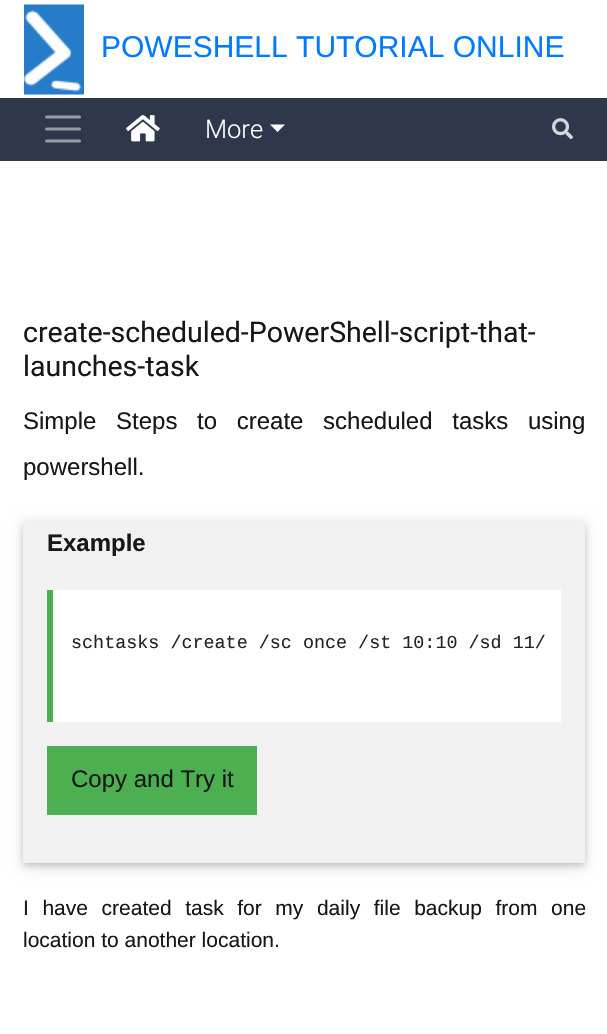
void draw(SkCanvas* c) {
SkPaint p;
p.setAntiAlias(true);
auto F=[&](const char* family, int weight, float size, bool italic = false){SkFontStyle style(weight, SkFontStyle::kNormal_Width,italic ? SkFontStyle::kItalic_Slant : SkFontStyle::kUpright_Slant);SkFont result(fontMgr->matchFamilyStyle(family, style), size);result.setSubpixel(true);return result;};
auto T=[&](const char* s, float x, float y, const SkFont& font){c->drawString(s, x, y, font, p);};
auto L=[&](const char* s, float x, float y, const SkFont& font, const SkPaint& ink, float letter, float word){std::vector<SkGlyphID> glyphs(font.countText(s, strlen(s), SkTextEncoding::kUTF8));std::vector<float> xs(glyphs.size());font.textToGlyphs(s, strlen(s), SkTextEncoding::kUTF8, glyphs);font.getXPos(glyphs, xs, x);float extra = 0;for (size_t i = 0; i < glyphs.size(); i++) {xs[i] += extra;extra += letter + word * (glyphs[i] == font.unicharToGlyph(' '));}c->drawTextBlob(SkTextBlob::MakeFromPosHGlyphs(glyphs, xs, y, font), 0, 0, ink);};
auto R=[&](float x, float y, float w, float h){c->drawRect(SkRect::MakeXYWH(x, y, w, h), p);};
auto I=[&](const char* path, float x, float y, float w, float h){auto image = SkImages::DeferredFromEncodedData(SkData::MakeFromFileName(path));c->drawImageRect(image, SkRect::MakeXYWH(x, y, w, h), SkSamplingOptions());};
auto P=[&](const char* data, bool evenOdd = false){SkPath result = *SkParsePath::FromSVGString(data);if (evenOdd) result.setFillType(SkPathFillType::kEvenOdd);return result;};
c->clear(0xffffffff);
I("1.png",24,4,60,91);
auto f1 = F("Liberation Sans",400,30);
p.setColor(0xff007bff);
T("POWESHELL TUTORIAL ONLINE",101,57,f1);
p.setColor(0xff2f374c);
R(0,98,607,63);
p.setStroke(true);
p.setStrokeWidth(3);
p.setStrokeCap(SkPaint::kRound_Cap);
p.setColor(0xff979ba6);
c->drawPath(P("M46.5 117h33m-33 12h33m-33 12h33"),p);
I("2.png",126,115,34,27);
auto f2 = F("Roboto",300,25.5);
p.setStroke(false);
p.setColor(0xffffffff);
T("More",205,138,f2);
c->drawPath(P("M270 124.5h15l-7.5 7.5z"),p);
I("3.png",552,118,21,22);
auto f3 = F("Roboto",400,28.5);
p.setColor(0xff181717);
T("create-scheduled-PowerShell-script-that-",23,342,f3);
T("launches-task",23,376,f3);
auto f4 = F("Liberation Sans",400,24);
L("Simple Steps to create scheduled tasks using",23,429,f4,p,0,13);
T("powershell.",23,475,f4);
p.setColor(0x1f000000);
p.setMaskFilter(SkMaskFilter::MakeBlur(kNormal_SkBlurStyle, 7.5));
c->drawRect(SkRect::MakeXYWH(23,524,562,342),p);
p.setMaskFilter(nullptr);
p.setColor(0x29000000);
p.setMaskFilter(SkMaskFilter::MakeBlur(kNormal_SkBlurStyle, 3));
c->drawRect(SkRect::MakeXYWH(23,524,562,342),p);
p.setMaskFilter(nullptr);
p.setColor(0xfff1f1f1);
R(23,521,562,342);
auto f5 = F("Liberation Sans",700,24);
p.setColor(0xff181717);
T("Example",47,551,f5);
p.setColor(0xffffffff);
R(53,590,508,132);
p.setColor(0xff4caf50);
R(47,590,6,132);
auto f6 = F("Liberation Mono",400,18.4);
p.setColor(0xff212529);
T("schtasks /create /sc once /st 10:10 /sd 11/",71,648,f6);
p.setColor(0xff4caf50);
R(47,746,210,69);
p.setColor(0xff181717);
T("Copy and Try it",71,787,f4);
auto f7 = F("Liberation Sans",400,21);
L("I have created task for my daily file backup from one",23,915,f7,p,0,7.75);
T("location to another location.",23,947,f7);
}
